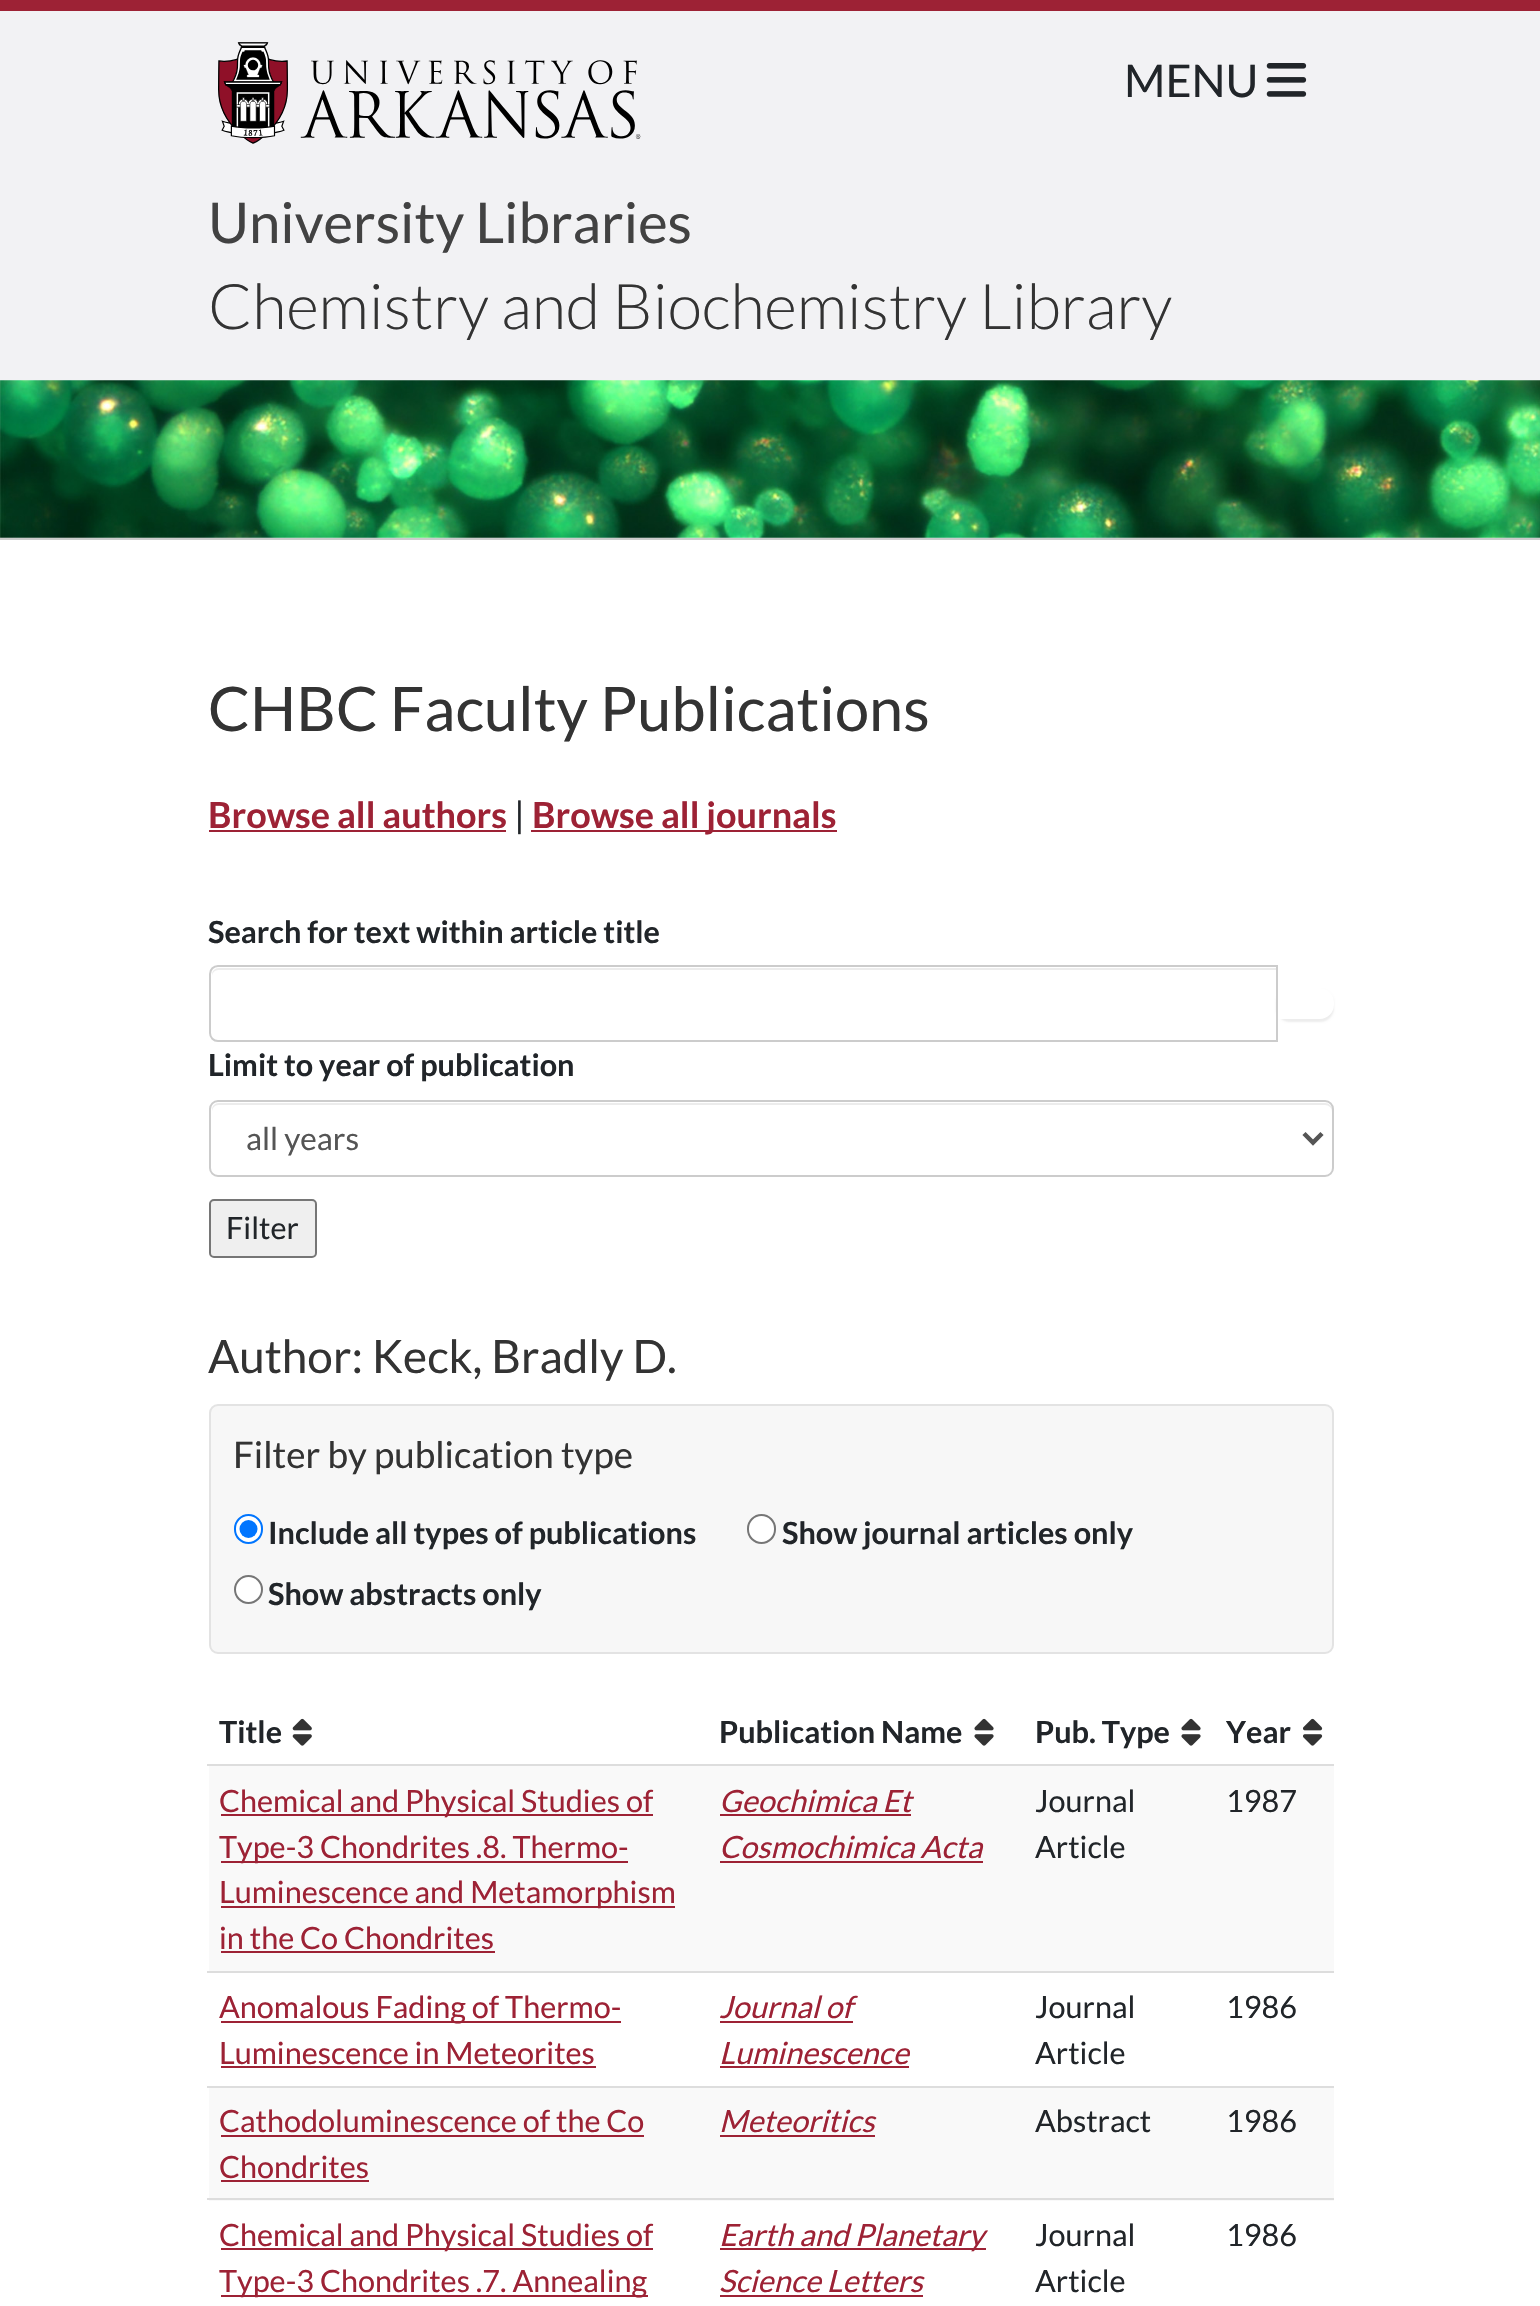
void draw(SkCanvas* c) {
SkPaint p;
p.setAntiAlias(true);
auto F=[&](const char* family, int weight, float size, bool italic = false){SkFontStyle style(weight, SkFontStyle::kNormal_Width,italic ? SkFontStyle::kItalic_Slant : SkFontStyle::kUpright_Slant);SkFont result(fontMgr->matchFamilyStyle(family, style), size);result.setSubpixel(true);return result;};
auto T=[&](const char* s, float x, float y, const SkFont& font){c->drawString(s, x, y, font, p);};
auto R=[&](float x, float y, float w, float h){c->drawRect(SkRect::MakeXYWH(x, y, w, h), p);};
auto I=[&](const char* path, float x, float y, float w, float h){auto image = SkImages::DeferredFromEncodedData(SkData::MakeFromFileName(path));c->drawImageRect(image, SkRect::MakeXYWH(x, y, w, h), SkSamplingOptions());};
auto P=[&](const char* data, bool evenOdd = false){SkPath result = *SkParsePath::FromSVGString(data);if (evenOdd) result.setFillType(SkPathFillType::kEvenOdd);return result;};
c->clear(0xffffffff);
p.setColor(0xfff2f2f4);
R(0,11,1540,527);
p.setColor(0xff9d2235);
R(0,0,1540,11);
p.setColor(0xffcccccc);
R(0,538,1540,2);
I("1.png",218,42,423,102);
auto f1 = F("Lato",400,45);
p.setColor(0xff212529);
T("MENU",1124,97,f1);
I("2.png",1266,63,41,34);
auto f2 = F("Lato",400,56.25);
p.setColor(0xff424242);
T("University Libraries",208,243,f2);
auto f3 = F("Lato",300,63);
p.setColor(0xff333333);
T("Chemistry and Biochemistry Library",208,329,f3);
I("3.png",0,380,1540,158);
auto f4 = F("Lato",400,61.25);
T("CHBC Faculty Publications",208,731,f4);
auto f5 = F("Lato",700,36);
p.setColor(0xff9d2235);
T("Browse all authors",208,828,f5);
R(209,830,297,2);
auto f6 = F("Lato",400,36);
p.setColor(0xff212529);
T("|",514,828,f6);
p.setColor(0xff9d2235);
R(531,830,306,2);
T("Browse all journals",532,828,f5);
auto f7 = F("Lato",700,30.6);
p.setColor(0xff212529);
T("Search for text within article title",208,943,f7);
p.setColor(0xffececec);
c->drawPath(P("M218 970h1058v-2h-1057c-4 0-7 3-7 7v1c0-3 3-6 6-6z"),p);
p.setStroke(true);
p.setStrokeWidth(2);
p.setColor(0xffcccccc);
c->drawPath(P("M218 966h1059v75h-1059c-4.5 0-8-3.5-8-8v-59c0-4.5 3.5-8 8-8z"),p);
c->save();
c->clipPath(P("M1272 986h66v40h-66zm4 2h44c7.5 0 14 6.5 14 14v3c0 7.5-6.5 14-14 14h-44z",true),true);
p.setStroke(false);
p.setColor(0x12000000);
p.setMaskFilter(SkMaskFilter::MakeBlur(kNormal_SkBlurStyle, 1));
c->drawRoundRect(SkRect::MakeXYWH(1276,990,58,32),14,14,p);
p.setMaskFilter(nullptr);
c->restore();
p.setColor(0xff212529);
T("Limit to year of publication",208,1076,f7);
p.setColor(0xffececec);
c->drawPath(P("M218 1105h1107c4 0 7 3 7 7v-2c0-4-3-7-7-7h-1106c-4 0-7 3-7 7v2c0-4 3-7 6-7z"),p);
p.setStroke(true);
p.setColor(0xffcccccc);
c->drawRoundRect(SkRect::MakeXYWH(210,1101,1123,75),8,8,p);
p.setStrokeWidth(4.5);
p.setColor(0xff555555);
c->drawPath(P("M1304 1133.5l9 9l9-9"),p);
auto f8 = F("Lato",400,31.5);
p.setStroke(false);
T("all years",246,1150,f8);
p.setColor(0xffefefef);
c->drawRoundRect(SkRect::MakeXYWH(210,1200,106,57),4,4,p);
p.setStroke(true);
p.setStrokeWidth(2);
p.setColor(0xff767676);
c->drawRoundRect(SkRect::MakeXYWH(210,1200,106,57),4,4,p);
auto f9 = F("Lato",400,30.6);
p.setStroke(false);
p.setColor(0xff212529);
T("Filter",226,1239,f9);
auto f10 = F("Lato",400,45.9);
p.setColor(0xff333333);
T("Author: Keck, Bradly D.",208,1373,f10);
p.setColor(0xfff7f7f7);
c->drawRoundRect(SkRect::MakeXYWH(210,1405,1123,248),8,8,p);
p.setStroke(true);
p.setColor(0xffe3e3e3);
c->drawRoundRect(SkRect::MakeXYWH(210,1405,1123,248),8,8,p);
auto f11 = F("Lato",400,36.75);
p.setStroke(false);
p.setColor(0xff333333);
T("Filter by publication type",233,1468,f11);
p.setColor(0xffffffff);
c->drawRoundRect(SkRect::MakeXYWH(235,1515,27,28),13.5,13.5,p);
p.setStroke(true);
p.setColor(0xff0075ff);
c->drawRoundRect(SkRect::MakeXYWH(235,1515,27,28),13.5,13.5,p);
p.setStroke(false);
c->drawCircle(248.5,1529,9,p);
p.setColor(0xff212529);
T("Include all types of publications",268,1544,f7);
p.setColor(0xffffffff);
c->drawRoundRect(SkRect::MakeXYWH(748,1515,27,28),13.5,13.5,p);
p.setStroke(true);
p.setColor(0xff767676);
c->drawRoundRect(SkRect::MakeXYWH(748,1515,27,28),13.5,13.5,p);
p.setStroke(false);
p.setColor(0xff212529);
T("Show journal articles only",782,1544,f7);
p.setColor(0xffffffff);
c->drawCircle(248.5,1589.5,13.5,p);
p.setStroke(true);
p.setColor(0xff767676);
c->drawCircle(248.5,1589.5,13.5,p);
p.setStroke(false);
p.setColor(0xff212529);
T("Show abstracts only",268,1605,f7);
T("Title",219,1743,f7);
I("4.png",292,1718,20,28);
T("Publication Name",719,1743,f7);
I("5.png",974,1718,20,28);
T("Pub. Type",1035,1743,f7);
I("6.png",1181,1718,20,28);
T("Year",1226,1743,f7);
I("7.png",1303,1718,20,28);
p.setColor(0xfff9f9f9);
R(209,1766,1125,205);
p.setColor(0xff9d2235);
R(221,1814,432,2);
T("Chemical and Physical Studies of",219,1812,f9);
R(221,1861,407,2);
T("Type-3 Chondrites .8. Thermo-",219,1858,f9);
R(221,1906,454,2);
T("Luminescence and Metamorphism",219,1903,f9);
T("in the Co Chondrites",219,1949,f9);
R(221,1951,274,2);
auto f12 = F("Lato",400,30.6,true);
T("Geochimica Et",719,1812,f12);
R(720,1814,191,2);
T("Cosmochimica Acta",719,1858,f12);
R(720,1861,263,2);
p.setColor(0xff212529);
T("Journal",1035,1812,f9);
T("Article",1035,1858,f9);
p.setColor(0xffdddddd);
R(207,1764,1127,2);
p.setColor(0xff212529);
T("1987",1226,1812,f9);
p.setColor(0xff9d2235);
R(221,2021,400,2);
T("Anomalous Fading of Thermo-",219,2018,f9);
T("Luminescence in Meteorites",219,2064,f9);
R(221,2066,375,2);
T("Journal of",719,2018,f12);
R(720,2021,133,2);
T("Luminescence",719,2064,f12);
R(720,2066,189,2);
p.setColor(0xff212529);
T("Journal",1035,2018,f9);
T("Article",1035,2064,f9);
p.setColor(0xffdddddd);
R(207,1971,1127,2);
p.setColor(0xff212529);
T("1986",1226,2018,f9);
p.setColor(0xfff9f9f9);
R(209,2088,1125,113);
p.setColor(0xff9d2235);
T("Cathodoluminescence of the Co",219,2132,f9);
R(221,2135,423,2);
T("Chondrites",219,2178,f9);
R(221,2180,148,2);
T("Meteoritics",719,2132,f12);
R(720,2135,155,2);
p.setColor(0xff212529);
T("Abstract",1035,2132,f9);
p.setColor(0xffdddddd);
R(207,2086,1127,2);
p.setColor(0xff212529);
T("1986",1226,2132,f9);
p.setColor(0xff9d2235);
R(221,2248,432,2);
T("Chemical and Physical Studies of",219,2246,f9);
R(221,2295,427,2);
T("Type-3 Chondrites .7. Annealing",219,2292,f9);
R(720,2248,266,2);
T("Earth and Planetary",719,2246,f12);
T("Science Letters",719,2292,f12);
R(720,2295,203,2);
p.setColor(0xff212529);
T("Journal",1035,2246,f9);
T("Article",1035,2292,f9);
p.setColor(0xffdddddd);
R(207,2198,1127,2);
p.setColor(0xff212529);
T("1986",1226,2246,f9);
}
